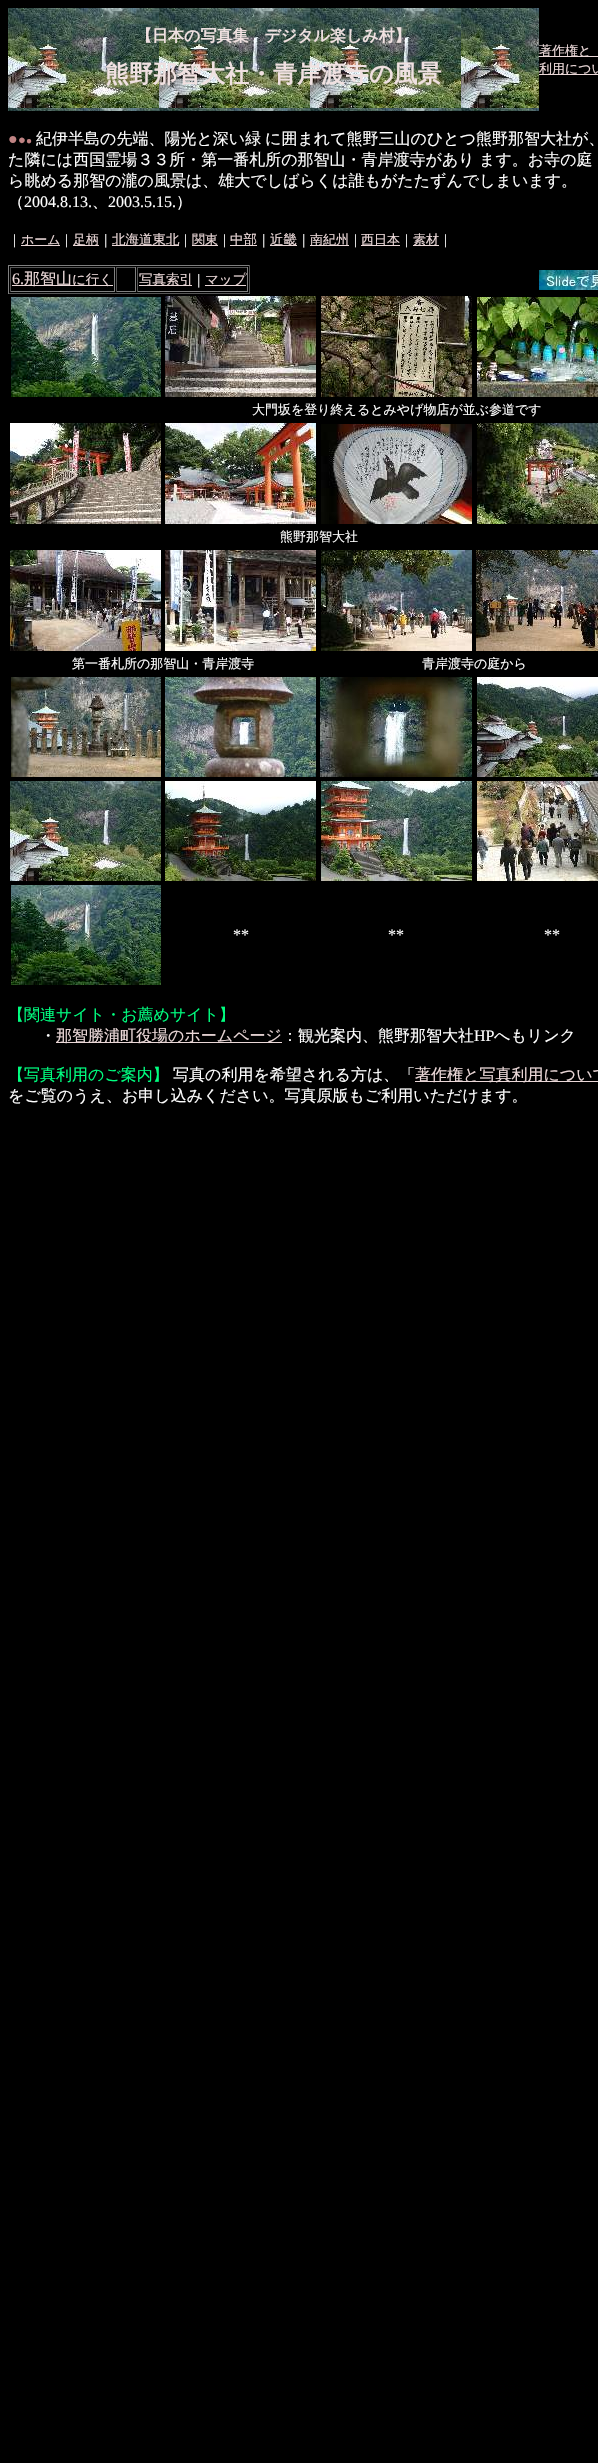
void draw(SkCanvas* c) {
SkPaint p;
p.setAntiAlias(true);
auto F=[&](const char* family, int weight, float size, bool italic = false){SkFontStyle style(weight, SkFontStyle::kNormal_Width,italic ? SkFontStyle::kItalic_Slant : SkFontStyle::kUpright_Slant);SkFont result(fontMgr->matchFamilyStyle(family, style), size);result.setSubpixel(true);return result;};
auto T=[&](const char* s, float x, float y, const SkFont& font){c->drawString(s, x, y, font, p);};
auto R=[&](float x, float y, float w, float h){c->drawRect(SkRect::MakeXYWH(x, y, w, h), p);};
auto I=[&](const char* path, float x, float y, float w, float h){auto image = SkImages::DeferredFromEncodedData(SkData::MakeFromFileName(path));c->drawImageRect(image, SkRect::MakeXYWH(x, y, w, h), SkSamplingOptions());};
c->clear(0xff000000);
I("1.png",8,8,531,103);
auto f1 = F("WenQuanYi Zen Hei",700,16);
p.setColor(0xfff0e1e1);
T("【日本の写真集　デジタル楽しみ村】",136,41,f1);
auto f2 = F("WenQuanYi Zen Hei",700,24);
T("熊野那智大社・青岸渡寺の風景",105,82,f2);
p.setColor(0xffebd8d8);
R(539,56,59,1);
auto f3 = F("WenQuanYi Zen Hei",500,13);
T("著作権と",539,55,f3);
R(539,74,59,1);
T("利用につい",539,73,f3);
auto f4 = F("Liberation Serif",400,16);
p.setColor(0xffc08383);
T("●",8,144,f4);
auto f5 = F("Liberation Serif",400,13);
T("●",18,144,f5);
auto f6 = F("Liberation Serif",400,10);
T("●",26,144,f6);
auto f7 = F("WenQuanYi Zen Hei",500,16);
p.setColor(0xffffffff);
T("紀伊半島の先端、陽光と深い緑",36,144,f7);
T("に囲まれて熊野三山のひとつ熊野那智大社が、",265,144,f7);
T("た隣には西国霊場３３所・第一番札所の那智山・青岸渡寺があり",8,165,f7);
T("ます。お寺の庭",479,165,f7);
T("ら眺める那智の瀧の風景は、雄大でしばらくは誰もがたたずんでしまいます。",8,186,f7);
T("（",8,207,f7);
T("2004.8.13.",24,207,f4);
T("、",92,207,f7);
T("2003.5.15.",108,207,f4);
T("）",176,207,f7);
T("｜",8,244,f3);
p.setColor(0xffebd8d8);
R(21,245,39,1);
T("ホーム",21,244,f3);
p.setColor(0xffffffff);
T("｜",60,244,f3);
p.setColor(0xffebd8d8);
R(73,245,26,1);
T("足柄",73,244,f3);
auto f8 = F("WenQuanYi Zen Hei",500,13.5);
p.setColor(0xffffffff);
T("｜",99,244,f8);
p.setColor(0xffebd8d8);
R(112,245,67,1);
T("北海道東北",112,244,f8);
p.setColor(0xffffffff);
T("｜",179,244,f3);
p.setColor(0xffebd8d8);
R(192,245,26,1);
T("関東",192,244,f3);
p.setColor(0xffffffff);
T("｜",218,244,f3);
p.setColor(0xffebd8d8);
R(230,245,27,1);
T("中部",230,244,f8);
p.setColor(0xffffffff);
T("｜",257,244,f8);
p.setColor(0xffebd8d8);
R(270,245,27,1);
T("近畿",270,244,f8);
p.setColor(0xffffffff);
T("｜",297,244,f8);
p.setColor(0xffebd8d8);
R(310,245,39,1);
T("南紀州",310,244,f3);
p.setColor(0xffffffff);
T("｜",349,244,f3);
p.setColor(0xffebd8d8);
R(361,245,39,1);
T("西日本",361,244,f3);
p.setColor(0xffffffff);
T("｜",400,244,f3);
p.setColor(0xffebd8d8);
R(413,245,26,1);
T("素材",413,244,f3);
p.setColor(0xffffffff);
T("｜",439,244,f3);
p.setColor(0xff808080);
R(8,265,242,1);
p.setColor(0xff555555);
R(249,265,1,29);
R(8,293,242,1);
p.setColor(0xff808080);
R(8,265,1,29);
p.setColor(0xff555555);
R(10,267,105,1);
p.setColor(0xff808080);
R(114,267,1,25);
R(10,291,105,1);
p.setColor(0xff555555);
R(10,267,1,25);
p.setColor(0xffebd8d8);
T("6.",12,284,f4);
R(12,285,101,1);
T("那智山",24,284,f7);
T("に行く",72,284,f8);
p.setColor(0xff555555);
R(116,267,20,1);
p.setColor(0xff808080);
R(135,267,1,25);
R(116,291,20,1);
p.setColor(0xff555555);
R(116,267,1,25);
R(137,267,111,1);
p.setColor(0xff808080);
R(247,267,1,25);
R(137,291,111,1);
p.setColor(0xff555555);
R(137,267,1,25);
p.setColor(0xffebd8d8);
R(139,285,53,1);
T("写真索引",139,284,f8);
p.setColor(0xffffffff);
T("｜",192,284,f8);
p.setColor(0xffebd8d8);
R(205,285,41,1);
T("マップ",205,284,f8);
I("2.png",539,270,59,20);
I("3.png",11,297,150,100);
I("4.png",165,296,151,101);
I("5.png",321,296,151,101);
I("6.png",477,297,121,100);
p.setColor(0xffffffff);
T("大門坂を登り終えるとみやげ物店が並ぶ参道です",252,414,f3);
I("7.png",10,423,151,101);
I("8.png",165,423,151,101);
I("9.png",321,424,151,100);
I("10.png",477,423,121,101);
T("熊野那智大社",280,541,f3);
I("11.png",10,550,151,101);
I("12.png",165,550,151,101);
I("13.png",321,550,151,101);
I("14.png",476,550,122,101);
T("第一番札所の那智山・青岸渡寺",72,668,f3);
T("青岸渡寺の庭から",422,668,f3);
I("15.png",11,677,150,100);
I("16.png",165,677,151,100);
I("17.png",320,677,152,100);
I("18.png",477,677,121,100);
I("19.png",10,781,151,100);
I("20.png",165,781,151,100);
I("21.png",321,781,151,100);
I("22.png",477,781,121,100);
I("23.png",11,885,150,100);
T("**",233,940,f4);
T("**",388,940,f4);
T("**",544,940,f4);
p.setColor(0xff00ff80);
T("【関連サイト・お薦めサイト】",8,1020,f7);
p.setColor(0xffffffff);
T("・",40,1041,f7);
p.setColor(0xffebd8d8);
R(56,1042,226,1);
T("那智勝浦町役場のホームページ",56,1041,f7);
p.setColor(0xffffffff);
T("：観光案内、熊野那智大社",282,1041,f7);
T("HP",474,1041,f4);
T("へもリンク",494,1041,f7);
p.setColor(0xff00ff80);
T("【写真利用のご案内】",8,1080,f7);
p.setColor(0xffffffff);
T("写真の利用を希望される方は、「",173,1080,f7);
p.setColor(0xffebd8d8);
R(415,1081,183,1);
T("著作権と写真利用について",415,1080,f7);
p.setColor(0xffffffff);
T("をご覧のうえ、お申し込みください。写真原版もご利用いただけます。",8,1101,f7);
}
